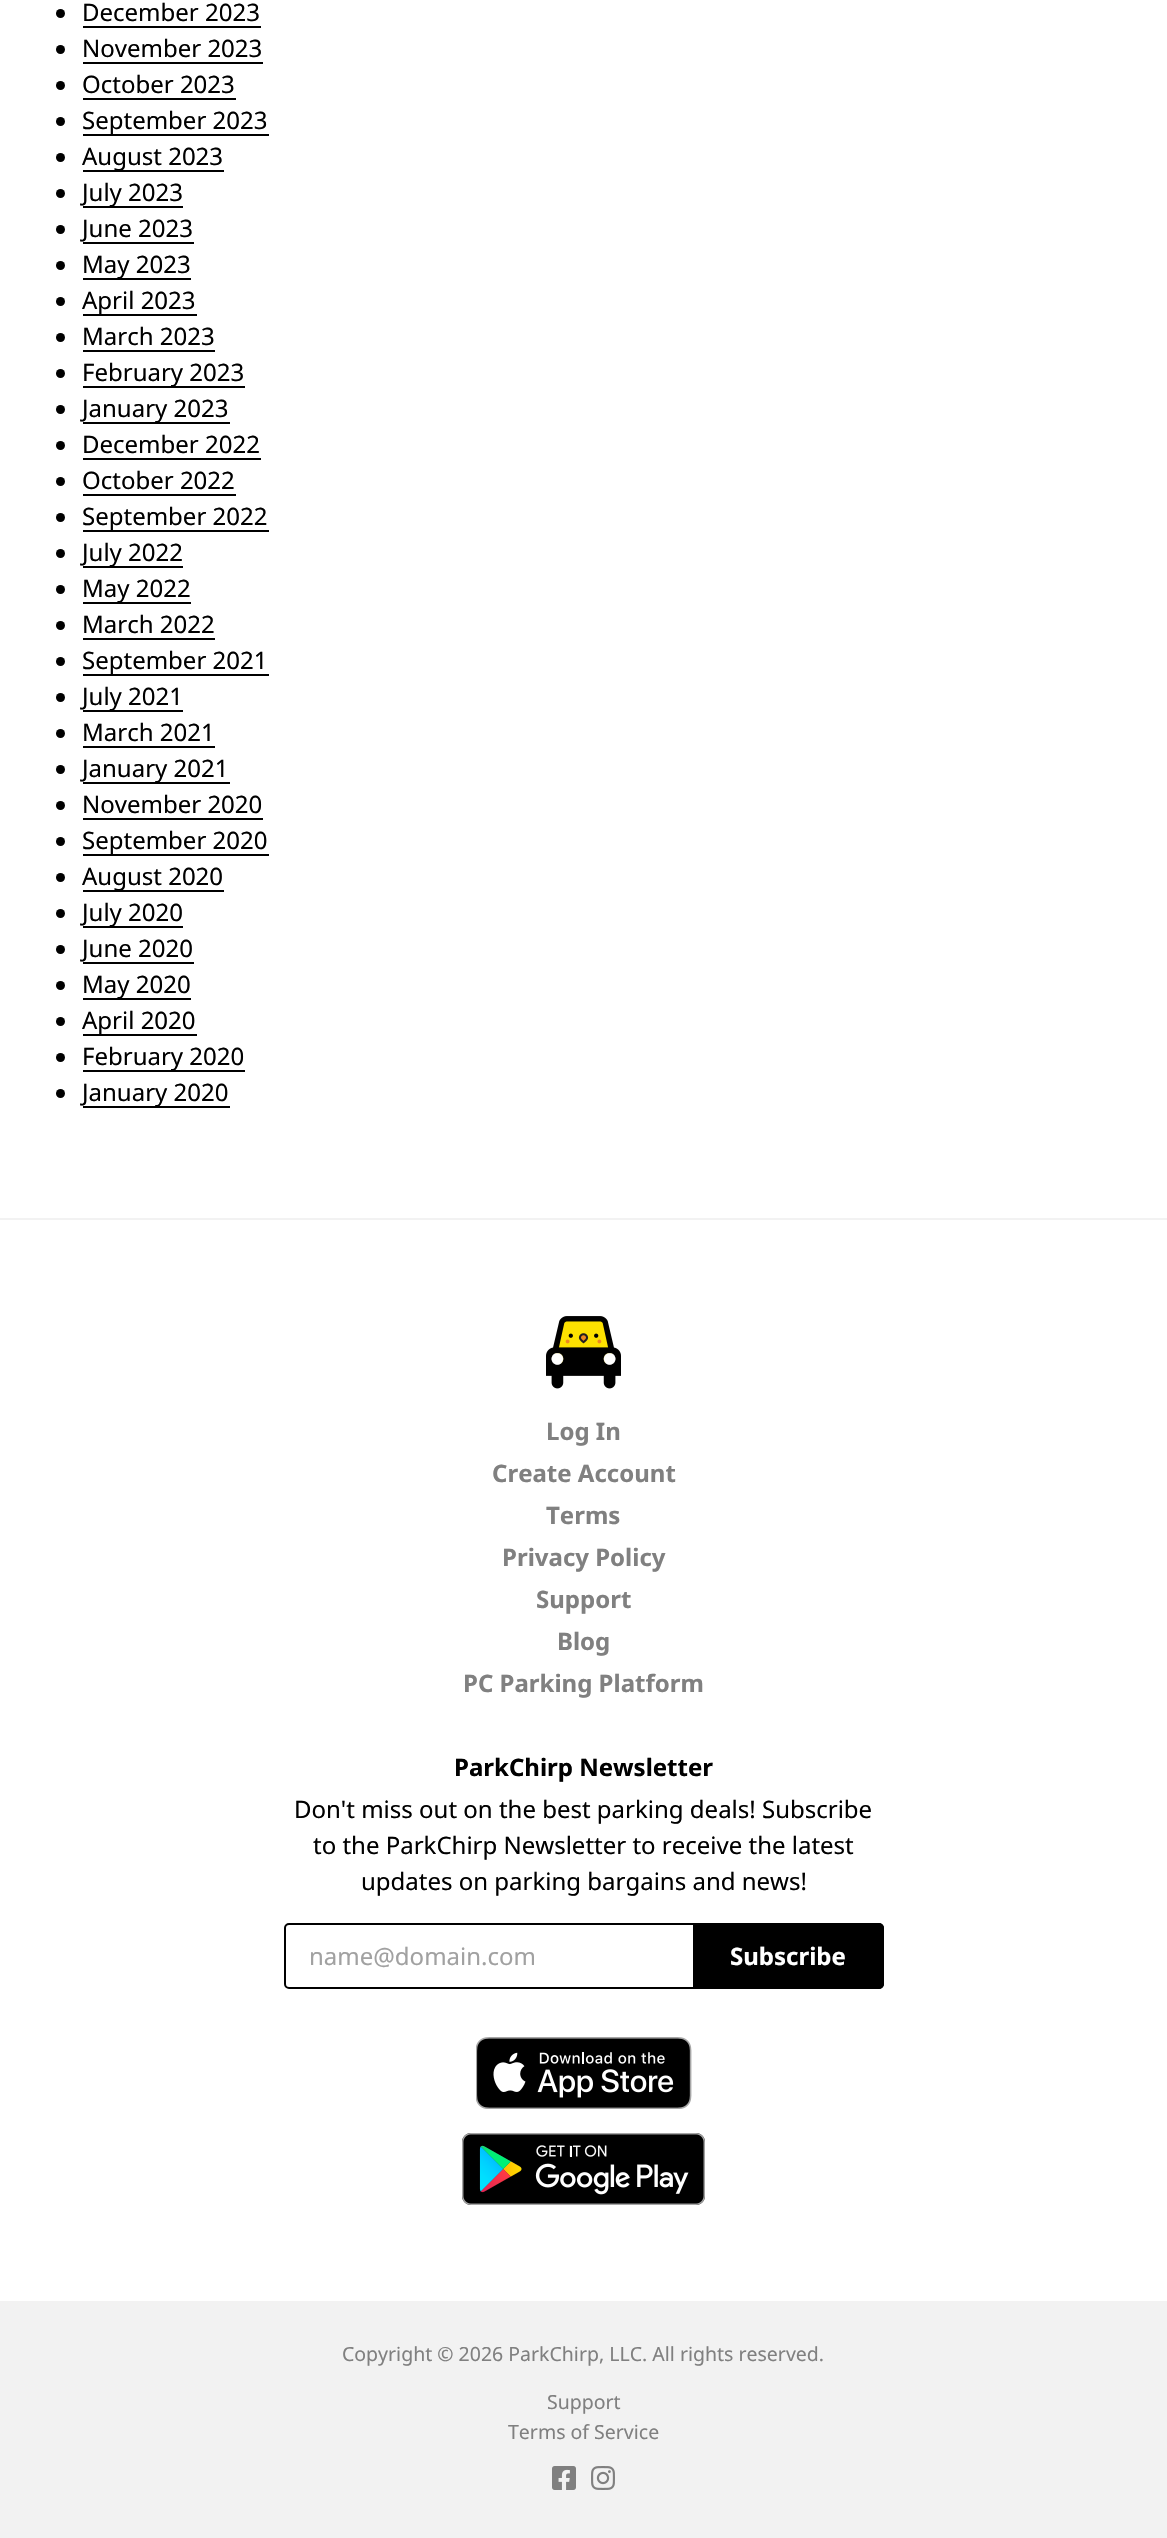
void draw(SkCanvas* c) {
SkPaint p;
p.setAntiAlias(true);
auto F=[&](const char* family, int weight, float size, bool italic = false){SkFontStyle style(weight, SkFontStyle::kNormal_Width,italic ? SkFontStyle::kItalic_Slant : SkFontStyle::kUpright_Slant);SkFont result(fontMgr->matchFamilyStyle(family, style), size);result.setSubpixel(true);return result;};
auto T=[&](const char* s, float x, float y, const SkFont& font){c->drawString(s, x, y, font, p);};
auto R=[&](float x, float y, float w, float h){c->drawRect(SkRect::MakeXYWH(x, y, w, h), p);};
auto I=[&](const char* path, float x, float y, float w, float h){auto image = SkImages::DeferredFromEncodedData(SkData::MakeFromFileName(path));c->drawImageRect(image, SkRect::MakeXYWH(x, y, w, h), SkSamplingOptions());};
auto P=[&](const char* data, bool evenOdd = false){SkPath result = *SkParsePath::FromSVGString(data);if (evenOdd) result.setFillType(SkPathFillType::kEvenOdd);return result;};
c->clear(0xffffffff);
p.setColor(0xff000000);
c->drawCircle(60.5,13.5,4.5,p);
auto f1 = F("Noto Sans",400,24);
T("December 2023",82,21,f1);
R(83,26,178,2);
c->drawCircle(60.5,49.5,4.5,p);
T("November 2023",82,57,f1);
R(83,62,180,2);
c->drawCircle(60.5,85.5,4.5,p);
T("October 2023",82,93,f1);
R(83,98,153,2);
c->drawCircle(60.5,121.5,4.5,p);
R(83,134,186,2);
T("September 2023",82,129,f1);
c->drawCircle(60.5,157.5,4.5,p);
R(83,170,141,2);
T("August 2023",82,165,f1);
c->drawCircle(60.5,193.5,4.5,p);
R(83,206,100,2);
T("July 2023",82,201,f1);
c->drawCircle(60.5,229.5,4.5,p);
T("June 2023",82,237,f1);
R(83,242,111,2);
c->drawCircle(60.5,265.5,4.5,p);
R(83,278,108,2);
T("May 2023",82,273,f1);
c->drawCircle(60.5,301.5,4.5,p);
R(83,314,114,2);
T("April 2023",82,309,f1);
c->drawCircle(60.5,337.5,4.5,p);
T("March 2023",82,345,f1);
R(83,350,132,2);
c->drawCircle(60.5,373.5,4.5,p);
R(83,386,162,2);
T("February 2023",82,381,f1);
c->drawCircle(60.5,409.5,4.5,p);
R(83,422,147,2);
T("January 2023",82,417,f1);
c->drawCircle(60.5,445.5,4.5,p);
T("December 2022",82,453,f1);
R(83,458,178,2);
c->drawCircle(60.5,481.5,4.5,p);
T("October 2022",82,489,f1);
R(83,494,153,2);
c->drawCircle(60.5,517.5,4.5,p);
R(83,530,186,2);
T("September 2022",82,525,f1);
c->drawCircle(60.5,553.5,4.5,p);
R(83,566,100,2);
T("July 2022",82,561,f1);
c->drawCircle(60.5,589.5,4.5,p);
R(83,602,108,2);
T("May 2022",82,597,f1);
c->drawCircle(60.5,625.5,4.5,p);
T("March 2022",82,633,f1);
R(83,638,132,2);
c->drawCircle(60.5,661.5,4.5,p);
R(83,674,186,2);
T("September 2021",82,669,f1);
c->drawCircle(60.5,697.5,4.5,p);
R(83,710,100,2);
T("July 2021",82,705,f1);
c->drawCircle(60.5,733.5,4.5,p);
T("March 2021",82,741,f1);
R(83,746,132,2);
c->drawCircle(60.5,769.5,4.5,p);
R(83,782,147,2);
T("January 2021",82,777,f1);
c->drawCircle(60.5,805.5,4.5,p);
T("November 2020",82,813,f1);
R(83,818,180,2);
c->drawCircle(60.5,841.5,4.5,p);
R(83,854,186,2);
T("September 2020",82,849,f1);
c->drawCircle(60.5,877.5,4.5,p);
R(83,890,141,2);
T("August 2020",82,885,f1);
c->drawCircle(60.5,913.5,4.5,p);
R(83,926,100,2);
T("July 2020",82,921,f1);
c->drawCircle(60.5,949.5,4.5,p);
T("June 2020",82,957,f1);
R(83,962,111,2);
c->drawCircle(60.5,985.5,4.5,p);
R(83,998,108,2);
T("May 2020",82,993,f1);
c->drawCircle(60.5,1021.5,4.5,p);
R(83,1034,114,2);
T("April 2020",82,1029,f1);
c->drawCircle(60.5,1057.5,4.5,p);
R(83,1070,162,2);
T("February 2020",82,1065,f1);
c->drawCircle(60.5,1093.5,4.5,p);
R(83,1106,147,2);
T("January 2020",82,1101,f1);
p.setColor(0xfff2f2f2);
R(0,1218,1167,2);
I("1.png",546,1316,75,73);
auto f2 = F("Noto Sans",700,24);
p.setColor(0xff808080);
T("Log In",546,1440,f2);
T("Create Account",492,1482,f2);
T("Terms",546,1524,f2);
T("Privacy Policy",502,1566,f2);
T("Support",536,1608,f2);
T("Blog",557,1650,f2);
T("PC Parking Platform",463,1692,f2);
p.setColor(0xff000000);
T("ParkChirp Newsletter",454,1776,f2);
T("Don't miss out on the best parking deals! Subscribe",294,1818,f1);
T("to the ParkChirp Newsletter to receive the latest",313,1854,f1);
T("updates on parking bargains and news!",361,1890,f1);
p.setStroke(true);
p.setStrokeWidth(2);
c->drawRoundRect(SkRect::MakeXYWH(285,1924,598,64),4,4,p);
p.setStroke(false);
p.setColor(0xffa1a1a1);
T("name@domain.com",309,1965,f1);
p.setColor(0xff000000);
c->drawPath(P("M694 1924h185c2 0 4 2 4 4v56c0 2-2 4-4 4h-185z"),p);
p.setStroke(true);
c->drawPath(P("M694 1924h185c2 0 4 2 4 4v56c0 2-2 4-4 4h-185z"),p);
p.setStroke(false);
p.setColor(0xffffffff);
T("Subscribe",730,1965,f2);
I("2.png",476,2037,216,72);
I("3.png",462,2133,243,72);
p.setColor(0xfff2f2f2);
R(0,2301,1167,237);
auto f3 = F("Noto Sans",400,19.5);
p.setColor(0xff808080);
T("Copyright © 2026 ParkChirp, LLC. All rights reserved.",342,2361,f3);
T("Support",547,2409,f3);
T("Terms of Service",508,2439,f3);
I("4.png",552,2466,24,24);
I("5.png",591,2466,24,24);
}
